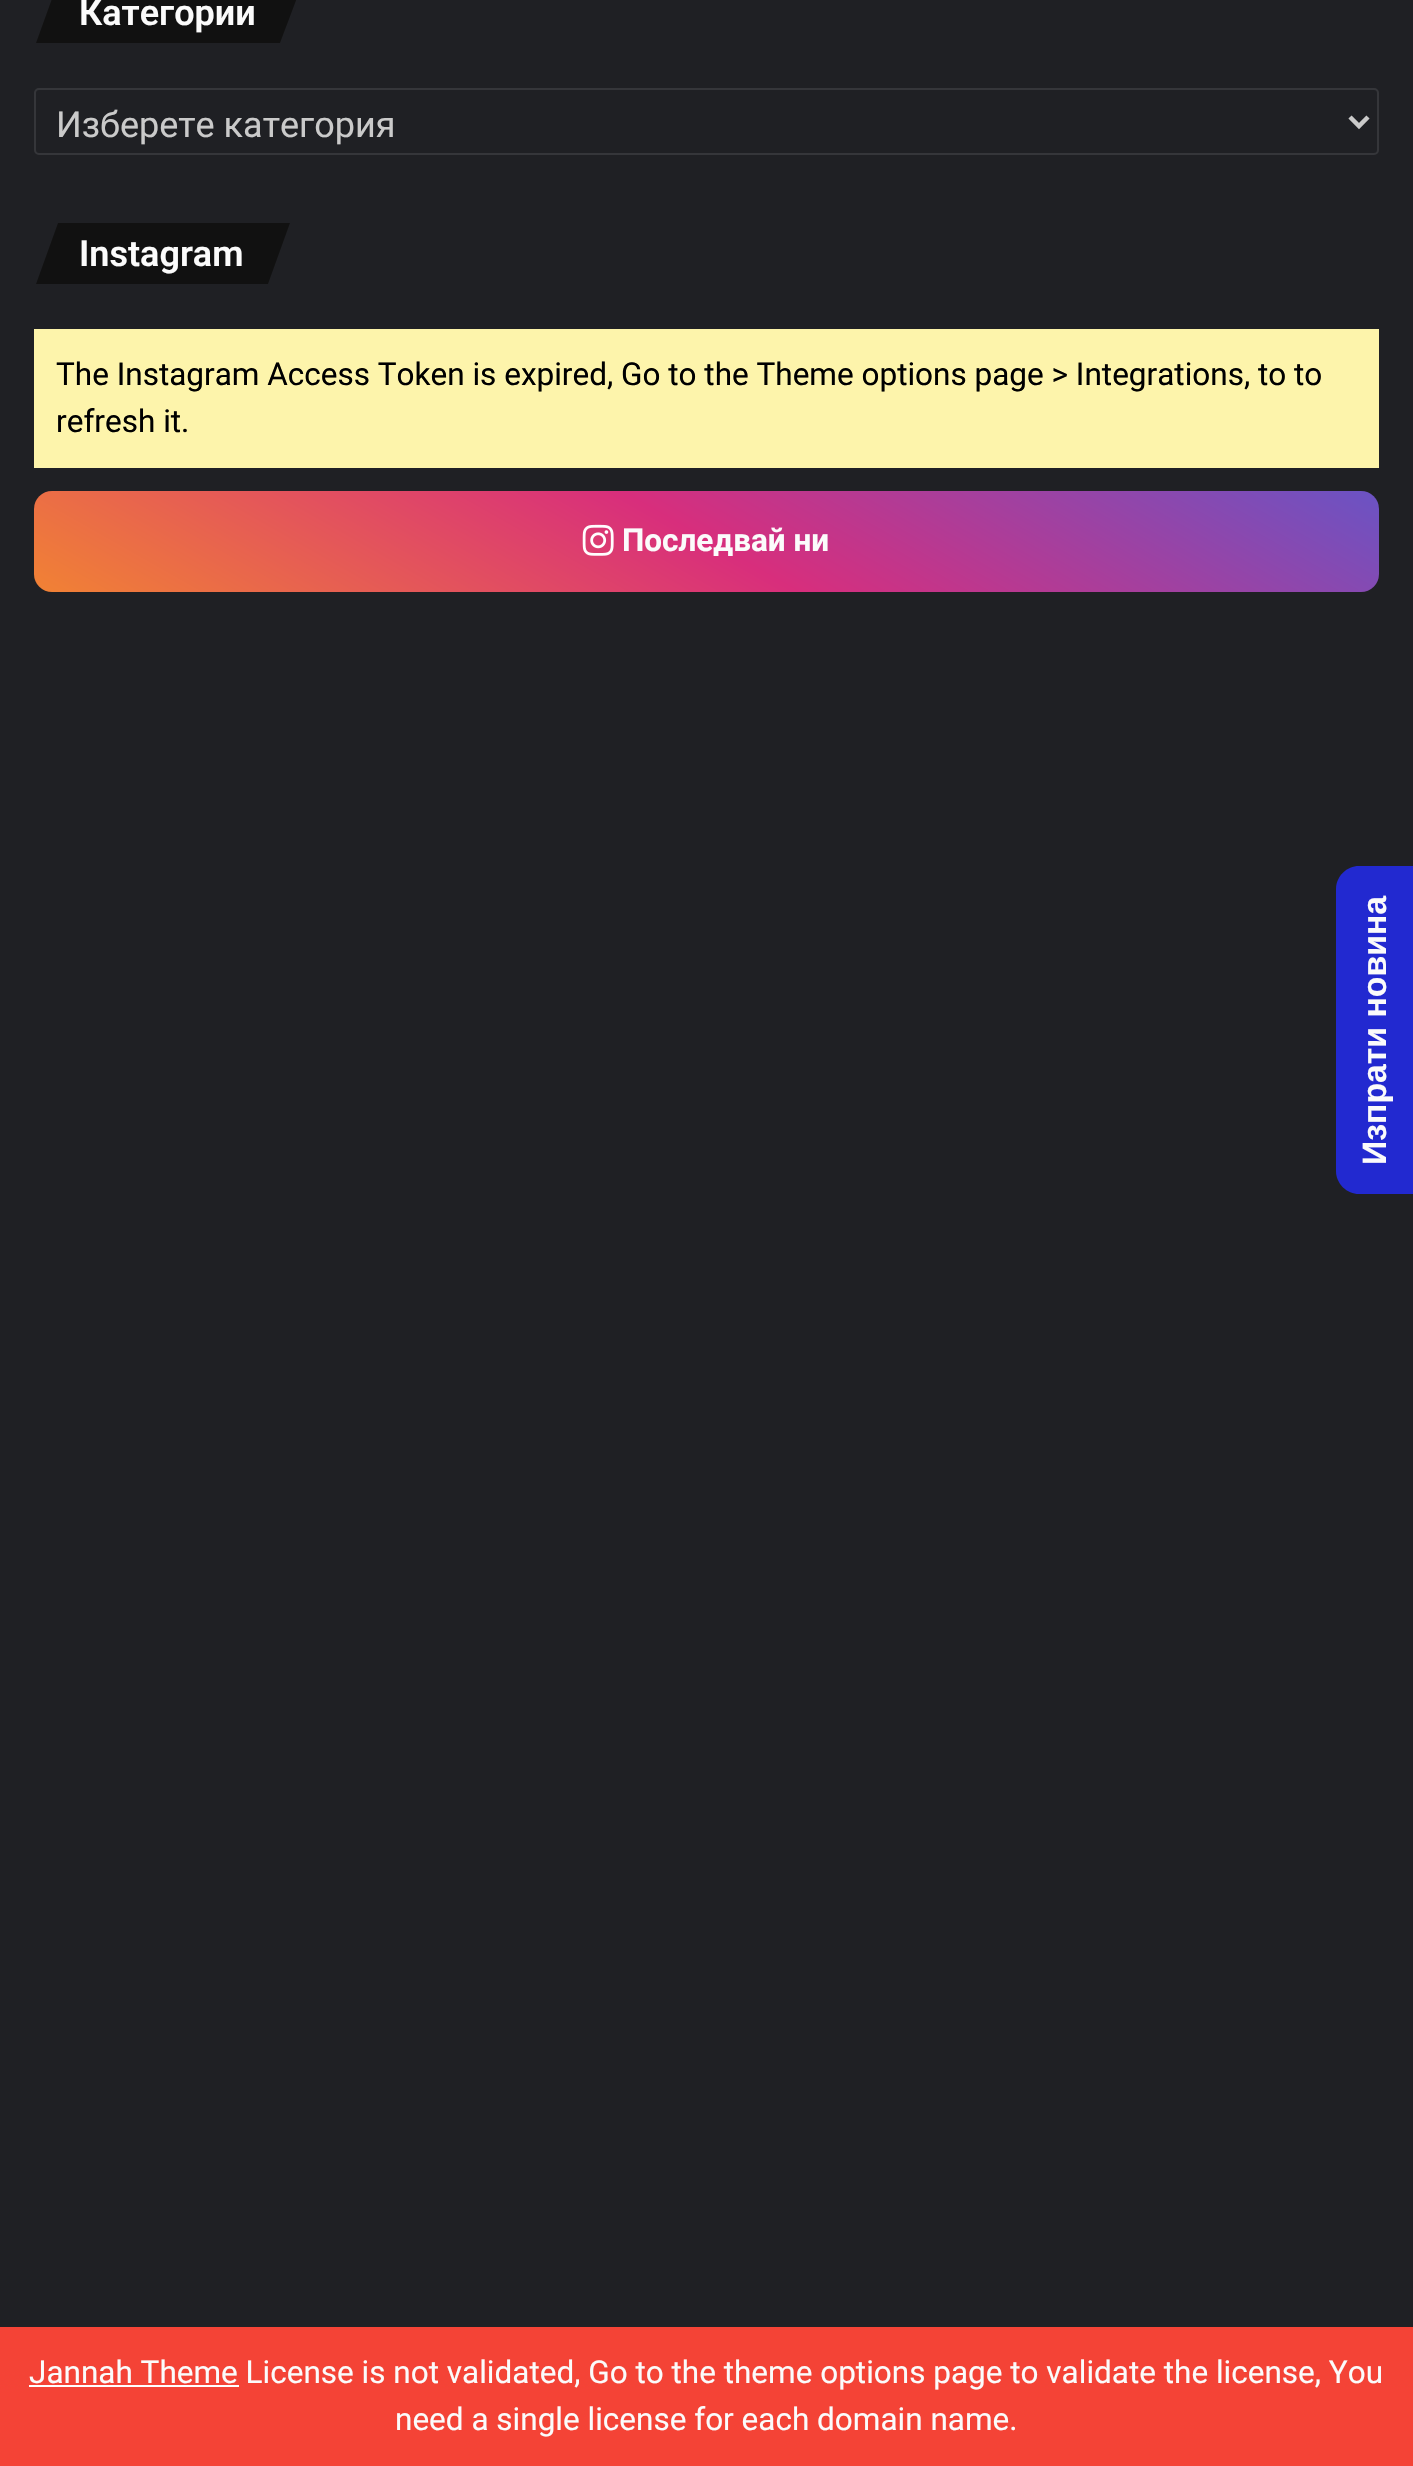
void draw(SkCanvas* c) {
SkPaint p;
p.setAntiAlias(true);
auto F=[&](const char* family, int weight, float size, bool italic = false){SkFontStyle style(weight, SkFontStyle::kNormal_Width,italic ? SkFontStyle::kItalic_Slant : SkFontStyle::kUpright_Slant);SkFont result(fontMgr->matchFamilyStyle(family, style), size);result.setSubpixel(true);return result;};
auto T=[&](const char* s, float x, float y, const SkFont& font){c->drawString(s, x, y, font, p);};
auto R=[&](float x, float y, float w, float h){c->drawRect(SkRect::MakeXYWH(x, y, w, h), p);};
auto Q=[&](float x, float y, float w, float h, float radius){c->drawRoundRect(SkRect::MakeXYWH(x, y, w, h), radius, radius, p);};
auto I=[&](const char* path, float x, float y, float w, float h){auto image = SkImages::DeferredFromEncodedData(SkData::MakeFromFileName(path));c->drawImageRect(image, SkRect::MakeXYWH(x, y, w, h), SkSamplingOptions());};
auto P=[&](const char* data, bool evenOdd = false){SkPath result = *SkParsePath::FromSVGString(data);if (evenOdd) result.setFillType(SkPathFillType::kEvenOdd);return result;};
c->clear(0xff1f2024);
p.setColor(0xff111111);
c->drawPath(P("M58-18h245l-23 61h-244z"),p);
auto f1 = F("Roboto",600,36);
p.setColor(0xfffbfbfb);
T("Категории",79,25,f1);
p.setStroke(true);
p.setStrokeWidth(2);
p.setColor(0xff35363a);
c->drawRoundRect(SkRect::MakeXYWH(35,89,1343,65),4,4,p);
p.setStrokeWidth(4.5);
p.setColor(0xffcacaca);
c->drawPath(P("M1350 117l9 9l9-9"),p);
auto f2 = F("Roboto",400,36);
p.setStroke(false);
T("Изберете категория",56,137,f2);
p.setColor(0xff111111);
c->drawPath(P("M58 223h232l-22 61h-232z"),p);
p.setColor(0xfffbfbfb);
T("Instagram",79,266,f1);
p.setColor(0xfffdf4ab);
R(34,329,1345,139);
auto f3 = F("Roboto",400,31.5);
p.setColor(0xff000000);
T("The Instagram Access Token is expired, Go to the Theme options page > Integrations, to to",56,385,f3);
T("refresh it.",56,432,f3);
{
const SkColor colors[] = {0xfff18234,0xffd82e7c,0xff6a53c4};
const float stops[] = {0,.5,1};
const SkPoint ends[] = {{521,868}, {892,214}};
p.setShader(SkGradientShader::MakeLinear(ends, colors, stops, 3, SkTileMode::kClamp));
p.setAlpha(255);
}
Q(34,491,1345,101,18);
I("1.png",582,524,32,32);
auto f4 = F("Roboto",700,31.5);
p.setShader(nullptr);
p.setColor(0xfffbfbfb);
T("Последвай ни",622,551,f4);
p.setColor(0xfff44336);
R(0,2327,1413,139);
p.setColor(0xffffffff);
R(29,2385,210,2);
p.setColor(0xfffbfbfb);
T("Jannah Theme License is not validated, Go to the theme options page to validate the license, You",29,2383,f3);
T("need a single license for each domain name.",395,2430,f3);
p.setColor(0xff2229d0);
c->drawPath(P("M1336 1171v-282c0-13 11-23 23-23h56v328h-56c-12 0-23-10-23-23z"),p);
auto f5 = F("Liberation Sans",700,33.75);
p.setColor(0xfffbfbfb);
c->save();
c->rotate(-90,1386,1165);
T("Изпрати новина",1386,1165,f5);
c->restore();
}
